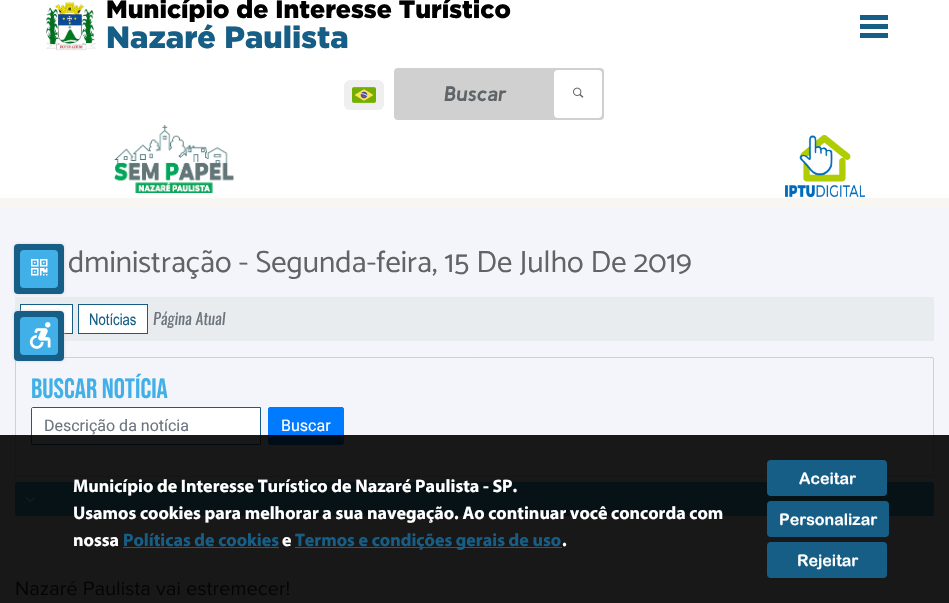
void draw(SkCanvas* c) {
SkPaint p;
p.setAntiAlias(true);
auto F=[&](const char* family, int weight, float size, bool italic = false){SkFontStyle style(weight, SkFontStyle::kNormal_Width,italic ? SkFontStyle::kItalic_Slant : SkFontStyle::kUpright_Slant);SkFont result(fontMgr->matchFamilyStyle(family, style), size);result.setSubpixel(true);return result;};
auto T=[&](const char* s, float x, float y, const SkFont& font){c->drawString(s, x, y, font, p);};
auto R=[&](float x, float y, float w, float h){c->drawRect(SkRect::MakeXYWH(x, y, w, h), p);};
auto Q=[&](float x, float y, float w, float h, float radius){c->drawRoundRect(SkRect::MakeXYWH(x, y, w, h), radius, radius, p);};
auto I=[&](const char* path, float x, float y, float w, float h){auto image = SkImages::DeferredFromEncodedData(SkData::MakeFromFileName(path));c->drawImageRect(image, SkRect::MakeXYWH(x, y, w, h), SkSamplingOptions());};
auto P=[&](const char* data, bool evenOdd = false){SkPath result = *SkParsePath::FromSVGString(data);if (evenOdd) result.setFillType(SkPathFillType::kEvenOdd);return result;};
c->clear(0xfff7f6f2);
p.setColor(0xffffffff);
R(0,0,949,198);
I("1.png",46,1,50,50);
auto f1 = F("Gotham",900,25);
p.setColor(0xff000000);
T("Município de Interesse Turístico",106,18,f1);
auto f2 = F("Gotham",900,30.7);
p.setColor(0xff175e87);
T("Nazaré Paulista",106,48,f2);
R(860,15,28,5);
R(860,24,28,5);
R(860,33,28,5);
p.setColor(0xffefefef);
Q(344,80,40,30,6);
I("2.png",352,87,24,16);
p.setColor(0xffd0d0d0);
Q(394,68,210,52,4);
auto f3 = F("Kulim Park",700,21,true);
p.setColor(0xff606466);
T("Buscar",444,101,f3);
p.setColor(0xffffffff);
Q(554,70,48,48,4);
I("3.png",573,87,11,11);
I("4.png",114,125,120,68);
I("5.png",785,135,80,62);
p.setColor(0xfff4f5fa);
R(0,208,949,395);
auto f4 = F("Catamaran",400,30.7);
p.setColor(0xff606466);
T("dministração - Segunda-feira, 15 De Julho De 2019",68,272,f4);
p.setColor(0xffe9ecef);
R(15,297,919,44);
p.setColor(0xffffffff);
c->drawRect(SkRect::MakeXYWH(20.5,304.5,52,29),p);
p.setStroke(true);
p.setStrokeWidth(1);
p.setColor(0xff175e87);
c->drawRect(SkRect::MakeXYWH(20.5,304.5,52,29),p);
p.setStroke(false);
p.setColor(0xffffffff);
c->drawRect(SkRect::MakeXYWH(78.5,304.5,69,29),p);
p.setStroke(true);
p.setColor(0xff175e87);
c->drawRect(SkRect::MakeXYWH(78.5,304.5,69,29),p);
auto f5 = F("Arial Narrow",400,16);
p.setStroke(false);
T("Notícias",89,325,f5);
auto f6 = F("Oswald",400,16,true);
p.setColor(0xff6c757d);
T("Página Atual",153,325,f6);
p.setStroke(true);
p.setColor(0xffc9cee1);
c->drawRoundRect(SkRect::MakeXYWH(15.5,357.5,918,119),1.5,1.5,p);
auto f7 = F("Bebas Neue",400,28);
p.setStroke(false);
p.setColor(0xff41b0e8);
T("Buscar Notícia",31,398,f7);
p.setColor(0xffffffff);
c->drawPath(P("M33 407.5h227.5v37h-227.5c-1 0-1.5-.5-1.5-1.5v-34c0-1 .5-1.5 1.5-1.5z"),p);
p.setStroke(true);
p.setColor(0xff175e87);
c->drawPath(P("M33 407.5h227.5v37h-227.5c-1 0-1.5-.5-1.5-1.5v-34c0-1 .5-1.5 1.5-1.5z"),p);
auto f8 = F("Roboto",400,16);
p.setStroke(false);
p.setColor(0xff6c757d);
T("Descrição da notícia",44,431,f8);
p.setColor(0xff007bff);
c->drawRoundRect(SkRect::MakeXYWH(268.5,407.5,75,37),1.5,1.5,p);
p.setStroke(true);
c->drawRoundRect(SkRect::MakeXYWH(268.5,407.5,75,37),1.5,1.5,p);
p.setStroke(false);
p.setColor(0xffffffff);
T("Buscar",281,431,f8);
p.setColor(0xff41b0e8);
Q(15,482,919,34,2);
I("6.png",25,497,10,6);
I("7.png",16,581,273,15);
p.setColor(0xe6000000);
R(0,435,949,168);
auto f9 = F("Myriad",700,18);
p.setColor(0xffffffff);
T("Município de Interesse Turístico de Nazaré Paulista - SP.",73,492,f9);
T("Usamos cookies para melhorar a sua navegação. Ao continuar você concorda com",73,519,f9);
T("nossa",73,546,f9);
p.setColor(0xff175e87);
T("Políticas de cookies",123,546,f9);
R(123,547,156,1);
p.setColor(0xffffffff);
T("e",282,546,f9);
p.setColor(0xff175e87);
R(295,547,267,1);
T("Termos e condições gerais de uso",295,546,f9);
p.setColor(0xffffffff);
T(".",562,546,f9);
p.setColor(0xff175e87);
Q(767,460,120,36,4);
auto f10 = F("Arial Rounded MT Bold",700,16);
p.setColor(0xffffffff);
T("Aceitar",799,484,f10);
p.setColor(0xff175e87);
Q(767,501,122,36,4);
p.setColor(0xffffffff);
T("Personalizar",779,525,f10);
p.setColor(0xff175e87);
Q(767,542,120,36,4);
p.setColor(0xffffffff);
T("Rejeitar",797,566,f10);
p.setColor(0xffcbd0d6);
p.setMaskFilter(SkMaskFilter::MakeBlur(kNormal_SkBlurStyle, 1.5));
c->drawRoundRect(SkRect::MakeXYWH(14,244,50,50),4,4,p);
p.setMaskFilter(nullptr);
p.setColor(0xff175e87);
Q(14,244,50,50,4);
p.setColor(0xff41b0e8);
Q(20,250,38,38,4);
I("8.png",31,259,17,17);
p.setColor(0xffcbd0d6);
p.setMaskFilter(SkMaskFilter::MakeBlur(kNormal_SkBlurStyle, 1.5));
c->drawRoundRect(SkRect::MakeXYWH(14,311,50,50),4,4,p);
p.setMaskFilter(nullptr);
p.setColor(0xff175e87);
Q(14,311,50,50,4);
p.setColor(0xff41b0e8);
Q(20,317,38,38,4);
I("9.png",29,322,22,27);
}
